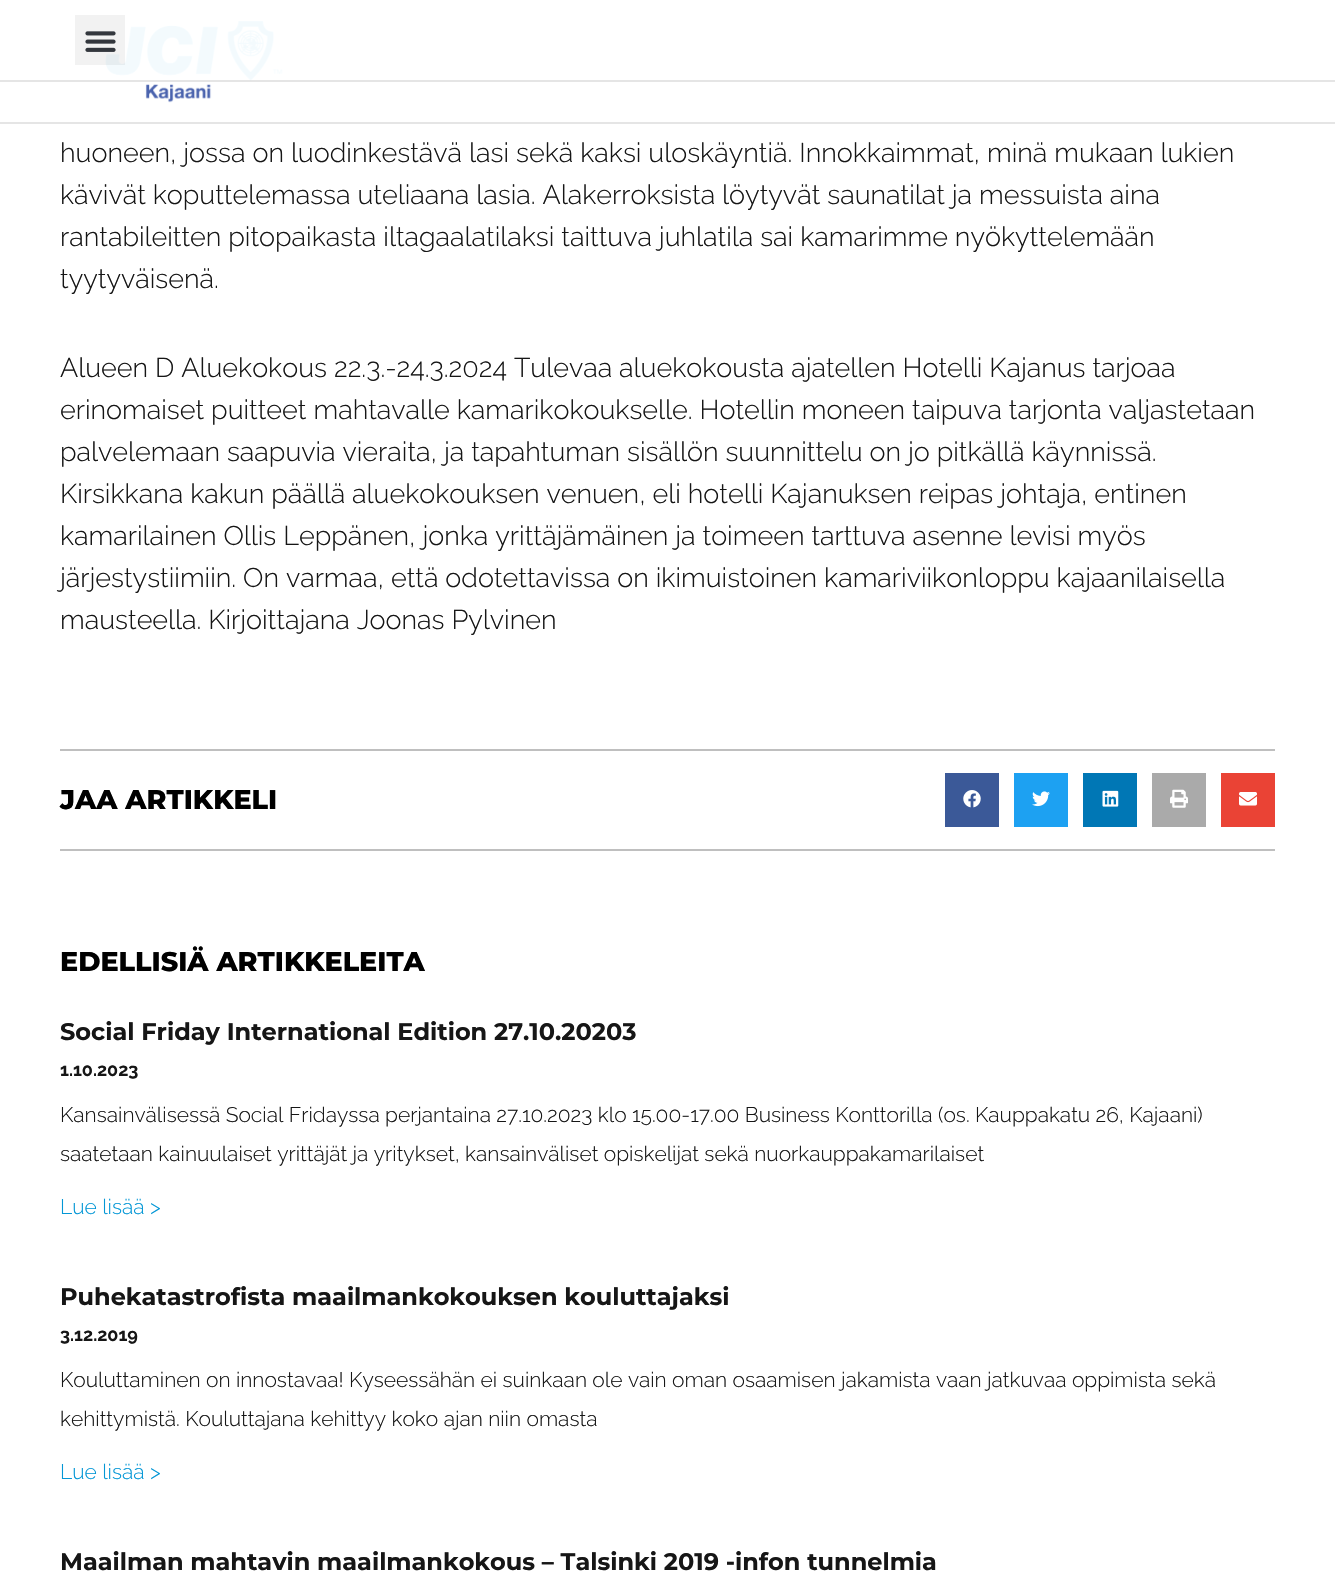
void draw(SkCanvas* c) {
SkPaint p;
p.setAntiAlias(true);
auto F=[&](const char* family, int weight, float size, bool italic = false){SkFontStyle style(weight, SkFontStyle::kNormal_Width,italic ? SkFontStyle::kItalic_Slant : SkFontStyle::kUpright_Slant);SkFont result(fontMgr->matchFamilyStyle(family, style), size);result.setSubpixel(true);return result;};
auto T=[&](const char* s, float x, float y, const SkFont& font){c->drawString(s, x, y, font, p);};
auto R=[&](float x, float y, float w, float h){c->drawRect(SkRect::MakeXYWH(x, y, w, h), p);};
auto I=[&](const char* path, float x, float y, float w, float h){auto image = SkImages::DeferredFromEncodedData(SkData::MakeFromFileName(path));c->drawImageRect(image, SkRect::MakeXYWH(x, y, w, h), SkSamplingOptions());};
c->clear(0xffffffff);
I("2.png",105,20,178,83);
p.setColor(0xf2ffffff);
R(105,20,178,61);
p.setColor(0x1a000000);
R(0,80,1335,2);
p.setColor(0x0d000000);
R(75,15,50,50);
I("1.png",85,31,31,21);
p.setColor(0x1a000000);
R(0,122,1335,2);
auto f1 = F("Raleway",300,27);
p.setColor(0xff161616);
T("huoneen, jossa on luodinkestävä lasi sekä kaksi uloskäyntiä. Innokkaimmat, minä mukaan lukien",60,162,f1);
T("kävivät koputtelemassa uteliaana lasia. Alakerroksista löytyvät saunatilat ja messuista aina",60,204,f1);
T("rantabileitten pitopaikasta iltagaalatilaksi taittuva juhlatila sai kamarimme nyökyttelemään",60,246,f1);
T("tyytyväisenä.",60,288,f1);
T("Alueen D Aluekokous 22.3.-24.3.2024 Tulevaa aluekokousta ajatellen Hotelli Kajanus tarjoaa",60,377,f1);
T("erinomaiset puitteet mahtavalle kamarikokoukselle. Hotellin moneen taipuva tarjonta valjastetaan",60,419,f1);
T("palvelemaan saapuvia vieraita, ja tapahtuman sisällön suunnittelu on jo pitkällä käynnissä.",60,461,f1);
T("Kirsikkana kakun päällä aluekokouksen venuen, eli hotelli Kajanuksen reipas johtaja, entinen",60,503,f1);
T("kamarilainen Ollis Leppänen, jonka yrittäjämäinen ja toimeen tarttuva asenne levisi myös",60,545,f1);
T("järjestystiimiin. On varmaa, että odotettavissa on ikimuistoinen kamariviikonloppu kajaanilaisella",60,587,f1);
T("mausteella. Kirjoittajana Joonas Pylvinen",60,629,f1);
p.setColor(0xffbfbfbf);
R(60,749,1215,2);
auto f2 = F("Montserrat",800,27);
p.setColor(0xff000000);
T("JAA ARTIKKELI",60,809,f2);
p.setColor(0xff3b5998);
R(945,773,54,54);
I("3.png",963,790,18,18);
p.setColor(0xff1da1f2);
R(1014,773,54,54);
I("4.png",1032,791,18,16);
p.setColor(0xff0077b5);
R(1083,773,54,54);
I("5.png",1102,790,17,17);
p.setColor(0xffaaaaaa);
R(1152,773,54,54);
I("6.png",1170,789,18,19);
p.setColor(0xffea4335);
R(1221,773,54,54);
I("7.png",1239,792,18,14);
p.setColor(0xffbfbfbf);
R(60,849,1215,2);
p.setColor(0xff000000);
T("EDELLISIÄ ARTIKKELEITA",60,971,f2);
auto f3 = F("Montserrat",700,24);
p.setColor(0xff161616);
T("Social Friday International Edition 27.10.20203",60,1040,f3);
auto f4 = F("Raleway",700,18);
T("1.10.2023",60,1076,f4);
auto f5 = F("Raleway",300,21);
T("Kansainvälisessä Social Fridayssa perjantaina 27.10.2023 klo 15.00-17.00 Business Konttorilla (os. Kauppakatu 26, Kajaani)",60,1122,f5);
T("saatetaan kainuulaiset yrittäjät ja yritykset, kansainväliset opiskelijat sekä nuorkauppakamarilaiset",60,1161,f5);
p.setColor(0xff0397d6);
T("Lue lisää >",60,1214,f5);
p.setColor(0xff161616);
T("Puhekatastrofista maailmankokouksen kouluttajaksi",60,1305,f3);
T("3.12.2019",60,1341,f4);
T("Kouluttaminen on innostavaa! Kyseessähän ei suinkaan ole vain oman osaamisen jakamista vaan jatkuvaa oppimista sekä",60,1387,f5);
T("kehittymistä. Kouluttajana kehittyy koko ajan niin omasta",60,1426,f5);
p.setColor(0xff0397d6);
T("Lue lisää >",60,1479,f5);
p.setColor(0xff161616);
T("Maailman mahtavin maailmankokous – Talsinki 2019 -infon tunnelmia",60,1570,f3);
}
